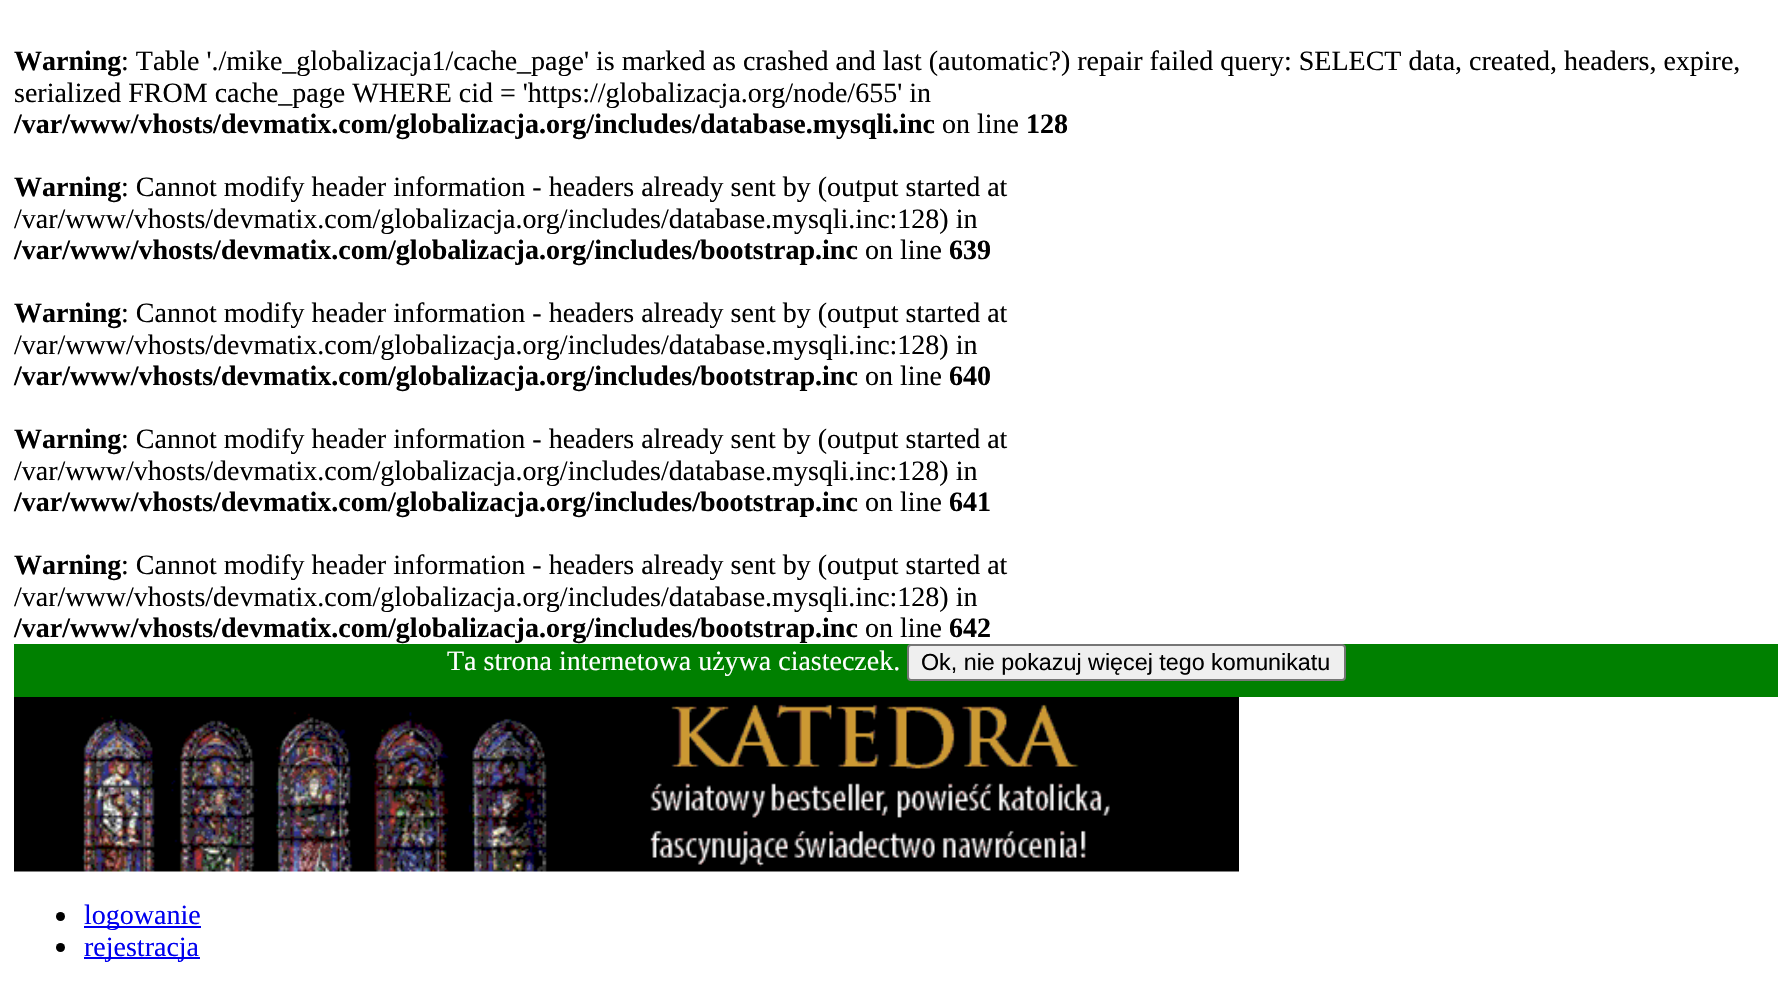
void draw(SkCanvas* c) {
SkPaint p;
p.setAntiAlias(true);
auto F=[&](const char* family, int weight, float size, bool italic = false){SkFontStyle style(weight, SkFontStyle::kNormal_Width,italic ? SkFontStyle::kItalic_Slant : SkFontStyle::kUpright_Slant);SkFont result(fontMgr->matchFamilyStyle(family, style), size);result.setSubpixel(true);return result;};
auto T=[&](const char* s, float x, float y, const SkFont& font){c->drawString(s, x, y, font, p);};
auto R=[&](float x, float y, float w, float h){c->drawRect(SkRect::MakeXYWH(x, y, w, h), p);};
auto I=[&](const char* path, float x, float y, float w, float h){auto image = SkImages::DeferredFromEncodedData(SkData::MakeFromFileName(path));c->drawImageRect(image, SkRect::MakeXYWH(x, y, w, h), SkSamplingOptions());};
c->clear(0xffffffff);
auto f1 = F("Liberation Serif",700,28);
p.setColor(0xff000000);
T("Warning",14,70,f1);
auto f2 = F("Liberation Serif",400,28);
T(": Table './mike_globalizacja1/cache_page' is marked as crashed and last (automatic?) repair failed query: SELECT data, created, headers, expire,",121,70,f2);
T("serialized FROM cache_page WHERE cid = 'https://globalizacja.org/node/655' in",14,102,f2);
T("/var/www/vhosts/devmatix.com/globalizacja.org/includes/database.mysqli.inc",14,133,f1);
T("on line",942,133,f2);
T("128",1026,133,f1);
T("Warning",14,196,f1);
T(": Cannot modify header information - headers already sent by (output started at",121,196,f2);
T("/var/www/vhosts/devmatix.com/globalizacja.org/includes/database.mysqli.inc:128) in",14,228,f2);
T("/var/www/vhosts/devmatix.com/globalizacja.org/includes/bootstrap.inc",14,259,f1);
T("on line",865,259,f2);
T("639",949,259,f1);
T("Warning",14,322,f1);
T(": Cannot modify header information - headers already sent by (output started at",121,322,f2);
T("/var/www/vhosts/devmatix.com/globalizacja.org/includes/database.mysqli.inc:128) in",14,354,f2);
T("/var/www/vhosts/devmatix.com/globalizacja.org/includes/bootstrap.inc",14,385,f1);
T("on line",865,385,f2);
T("640",949,385,f1);
T("Warning",14,448,f1);
T(": Cannot modify header information - headers already sent by (output started at",121,448,f2);
T("/var/www/vhosts/devmatix.com/globalizacja.org/includes/database.mysqli.inc:128) in",14,480,f2);
T("/var/www/vhosts/devmatix.com/globalizacja.org/includes/bootstrap.inc",14,511,f1);
T("on line",865,511,f2);
T("641",949,511,f1);
T("Warning",14,574,f1);
T(": Cannot modify header information - headers already sent by (output started at",121,574,f2);
T("/var/www/vhosts/devmatix.com/globalizacja.org/includes/database.mysqli.inc:128) in",14,606,f2);
T("/var/www/vhosts/devmatix.com/globalizacja.org/includes/bootstrap.inc",14,637,f1);
T("on line",865,637,f2);
T("642",949,637,f1);
p.setColor(0xff008000);
R(14,644,1764,53);
p.setColor(0xffffffff);
T("Ta strona internetowa używa ciasteczek.",447,670,f2);
p.setColor(0xffefefef);
c->drawRoundRect(SkRect::MakeXYWH(908,645,437,35),3,3,p);
p.setStroke(true);
p.setStrokeWidth(2);
p.setColor(0xff767676);
c->drawRoundRect(SkRect::MakeXYWH(908,645,437,35),3,3,p);
auto f3 = F("Liberation Sans",400,23.3);
p.setStroke(false);
p.setColor(0xff000000);
T("Ok, nie pokazuj więcej tego komunikatu",921,670,f3);
I("1.png",14,697,1225,175);
c->drawCircle(60.5,916.5,4.5,p);
p.setColor(0xff0000ee);
R(84,926,117,2);
T("logowanie",84,924,f2);
p.setColor(0xff000000);
c->drawCircle(60.5,947.5,4.5,p);
p.setColor(0xff0000ee);
R(84,957,116,2);
T("rejestracja",84,956,f2);
}
